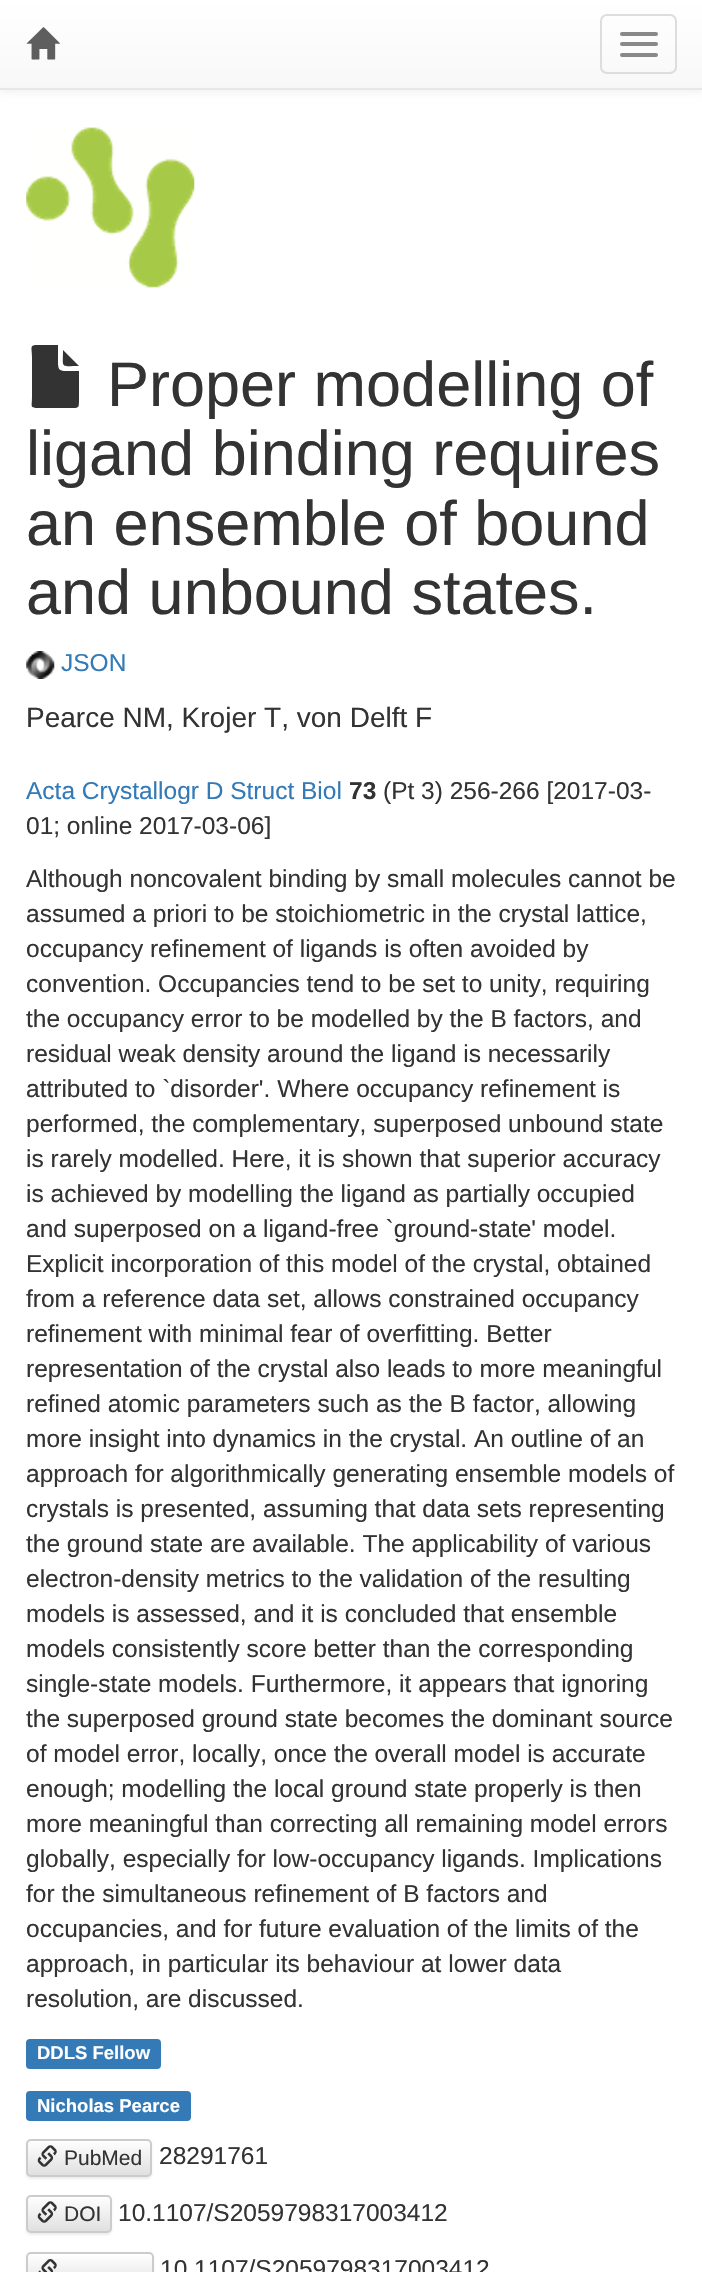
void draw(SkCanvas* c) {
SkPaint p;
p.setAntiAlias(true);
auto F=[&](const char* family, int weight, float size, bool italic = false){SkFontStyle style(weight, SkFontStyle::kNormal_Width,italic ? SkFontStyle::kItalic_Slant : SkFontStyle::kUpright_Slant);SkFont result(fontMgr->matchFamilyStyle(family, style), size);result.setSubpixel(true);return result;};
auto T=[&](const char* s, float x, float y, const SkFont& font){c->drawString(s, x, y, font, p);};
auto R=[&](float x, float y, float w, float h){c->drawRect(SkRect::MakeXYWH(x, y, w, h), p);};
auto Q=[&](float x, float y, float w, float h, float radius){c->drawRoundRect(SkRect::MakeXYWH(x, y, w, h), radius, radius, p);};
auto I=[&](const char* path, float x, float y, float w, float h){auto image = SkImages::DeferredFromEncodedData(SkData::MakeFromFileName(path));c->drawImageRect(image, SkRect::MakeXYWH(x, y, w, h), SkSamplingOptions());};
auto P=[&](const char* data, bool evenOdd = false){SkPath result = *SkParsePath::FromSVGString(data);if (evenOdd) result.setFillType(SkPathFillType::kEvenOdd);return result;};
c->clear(0xffffffff);
p.setColor(0x12000000);
p.setMaskFilter(SkMaskFilter::MakeBlur(kNormal_SkBlurStyle, 4.5));
c->drawRect(SkRect::MakeXYWH(0,2,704,89),p);
p.setMaskFilter(nullptr);
{
const SkColor colors[] = {0xffffffff,0xfff8f8f8};
const float stops[] = {0,1};
const SkPoint ends[] = {{352,0}, {352,88}};
p.setShader(SkGradientShader::MakeLinear(ends, colors, stops, 2, SkTileMode::kClamp));
p.setAlpha(255);
}
R(0,0,702,88);
p.setShader(nullptr);
p.setColor(0xffe7e7e7);
R(0,88,702,2);
I("1.png",26,27,34,33);
p.setStroke(true);
p.setStrokeWidth(2);
p.setColor(0xffdddddd);
c->drawRoundRect(SkRect::MakeXYWH(601,15,75,58),6,6,p);
p.setStroke(false);
p.setColor(0xff888888);
Q(620,32,38,4,2);
Q(620,42,38,4,2);
Q(620,53,38,4,2);
I("2.png",26,127,169,161);
p.setColor(0xff333333);
c->drawPath(P("M58 345v17c0 7 1 9 8 9h13v28c0 10 0 9-10 9h-28c-12 0-9 0-9-12v-39c0-10-3-12 6-12zm21 21c-19 0-16 3-16-16z"),p);
auto f1 = F("Liberation Sans",400,63);
T("Proper modelling of",107,406,f1);
T("ligand binding requires",26,475,f1);
T("an ensemble of bound",26,545,f1);
T("and unbound states.",26,614,f1);
I("3.png",26,651,29,28);
auto f2 = F("Liberation Sans",400,24.5);
p.setColor(0xff337ab7);
T("JSON",61,671,f2);
auto f3 = F("Liberation Sans",400,28);
p.setColor(0xff333333);
T("Pearce NM, Krojer T, von Delft F",26,727,f3);
p.setColor(0xff337ab7);
T("Acta Crystallogr D Struct Biol",26,799,f2);
auto f4 = F("Liberation Sans",700,24.5);
p.setColor(0xff333333);
T("73",349,799,f4);
T("(Pt 3) 256-266 [2017-03-",383,799,f2);
T("01; online 2017-03-06]",26,834,f2);
T("Although noncovalent binding by small molecules cannot be",26,887,f2);
T("assumed a priori to be stoichiometric in the crystal lattice,",26,922,f2);
T("occupancy refinement of ligands is often avoided by",26,957,f2);
T("convention. Occupancies tend to be set to unity, requiring",26,992,f2);
T("the occupancy error to be modelled by the B factors, and",26,1027,f2);
T("residual weak density around the ligand is necessarily",26,1062,f2);
T("attributed to `disorder'. Where occupancy refinement is",26,1097,f2);
T("performed, the complementary, superposed unbound state",26,1132,f2);
T("is rarely modelled. Here, it is shown that superior accuracy",26,1167,f2);
T("is achieved by modelling the ligand as partially occupied",26,1202,f2);
T("and superposed on a ligand-free `ground-state' model.",26,1237,f2);
T("Explicit incorporation of this model of the crystal, obtained",26,1272,f2);
T("from a reference data set, allows constrained occupancy",26,1307,f2);
T("refinement with minimal fear of overfitting. Better",26,1342,f2);
T("representation of the crystal also leads to more meaningful",26,1377,f2);
T("refined atomic parameters such as the B factor, allowing",26,1412,f2);
T("more insight into dynamics in the crystal. An outline of an",26,1447,f2);
T("approach for algorithmically generating ensemble models of",26,1482,f2);
T("crystals is presented, assuming that data sets representing",26,1517,f2);
T("the ground state are available. The applicability of various",26,1552,f2);
T("electron-density metrics to the validation of the resulting",26,1587,f2);
T("models is assessed, and it is concluded that ensemble",26,1622,f2);
T("models consistently score better than the corresponding",26,1657,f2);
T("single-state models. Furthermore, it appears that ignoring",26,1692,f2);
T("the superposed ground state becomes the dominant source",26,1727,f2);
T("of model error, locally, once the overall model is accurate",26,1762,f2);
T("enough; modelling the local ground state properly is then",26,1797,f2);
T("more meaningful than correcting all remaining model errors",26,1832,f2);
T("globally, especially for low-occupancy ligands. Implications",26,1867,f2);
T("for the simultaneous refinement of B factors and",26,1902,f2);
T("occupancies, and for future evaluation of the limits of the",26,1937,f2);
T("approach, in particular its behaviour at lower data",26,1972,f2);
T("resolution, are discussed.",26,2007,f2);
p.setColor(0xff337ab7);
Q(26,2039,135,30,4);
auto f5 = F("Liberation Sans",700,18.5);
p.setColor(0xffffffff);
T("DDLS Fellow",37,2059,f5);
p.setColor(0xff337ab7);
Q(26,2091,165,30,4);
p.setColor(0xffffffff);
T("Nicholas Pearce",37,2112,f5);
p.setColor(0x12000000);
p.setMaskFilter(SkMaskFilter::MakeBlur(kNormal_SkBlurStyle, 1));
c->drawRoundRect(SkRect::MakeXYWH(26,2140,126,39),5,5,p);
p.setMaskFilter(nullptr);
c->save();
c->clipPath(P("M31 2139h116c3 0 5 2 5 5v28c0 3-2 5-5 5h-116c-3 0-5-2-5-5v-28c0-3 2-5 5-5z"),true);
{
const SkColor colors[] = {0xffffffff,0xffe0e0e0};
const float stops[] = {0,1};
const SkPoint ends[] = {{89,2140}, {89,2175}};
p.setShader(SkGradientShader::MakeLinear(ends, colors, stops, 2, SkTileMode::kClamp));
p.setAlpha(255);
}
R(26,2140,126,35);
c->restore();
p.setShader(nullptr);
p.setColor(0x26ffffff);
c->drawPath(P("M32 2142h115c2 0 3 2 3 4v28c2-3 1-13 1-16c0-23 2-18-23-18h-96c-4 0-4 3-4 6c0-2 2-4 4-4z"),p);
p.setStroke(true);
p.setColor(0xffcccccc);
c->drawRoundRect(SkRect::MakeXYWH(27,2140,124,36),4,4,p);
I("4.png",37,2145,20,22);
auto f6 = F("Liberation Sans",400,21);
p.setStroke(false);
p.setColor(0xff333333);
T("PubMed",64,2165,f6);
T("28291761",159,2164,f2);
p.setColor(0x12000000);
p.setMaskFilter(SkMaskFilter::MakeBlur(kNormal_SkBlurStyle, 1));
c->drawRoundRect(SkRect::MakeXYWH(26,2196,86,39),5,5,p);
p.setMaskFilter(nullptr);
c->save();
c->clipPath(P("M31 2195h76c3 0 5 2 5 5v28c0 3-2 5-5 5h-76c-3 0-5-2-5-5v-28c0-3 2-5 5-5z"),true);
{
const SkColor colors[] = {0xffffffff,0xffe0e0e0};
const float stops[] = {0,1};
const SkPoint ends[] = {{69,2196}, {69,2231}};
p.setShader(SkGradientShader::MakeLinear(ends, colors, stops, 2, SkTileMode::kClamp));
p.setAlpha(255);
}
R(26,2196,86,35);
c->restore();
p.setStroke(true);
p.setShader(nullptr);
p.setColor(0xffcccccc);
c->drawRoundRect(SkRect::MakeXYWH(27,2196,84,36),4,4,p);
I("4.png",37,2201,20,22);
p.setStroke(false);
p.setColor(0xff333333);
T("DOI",64,2221,f6);
T("10.1107/S2059798317003412",118,2221,f2);
p.setColor(0x12000000);
p.setMaskFilter(SkMaskFilter::MakeBlur(kNormal_SkBlurStyle, 1));
c->drawRoundRect(SkRect::MakeXYWH(26,2254,128,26),5,5,p);
p.setMaskFilter(nullptr);
c->save();
c->clipPath(P("M31 2252h118c3 0 5 2 5 5v29c0 3-2 5-5 5h-118c-3 0-5-2-5-5v-29c0-3 2-5 5-5z"),true);
{
const SkColor colors[] = {0xffffffff,0xffe0e0e0};
const float stops[] = {0,1};
const SkPoint ends[] = {{90,2254}, {90,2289}};
p.setShader(SkGradientShader::MakeLinear(ends, colors, stops, 2, SkTileMode::kClamp));
p.setAlpha(255);
}
R(26,2254,128,18);
c->restore();
p.setStroke(true);
p.setShader(nullptr);
p.setColor(0xffcccccc);
c->drawRoundRect(SkRect::MakeXYWH(27,2253,126,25),4,4,p);
I("5.png",38,2259,19,13);
p.setStroke(false);
p.setColor(0xff333333);
T("10.1107/S2059798317003412",160,2277,f2);
}
